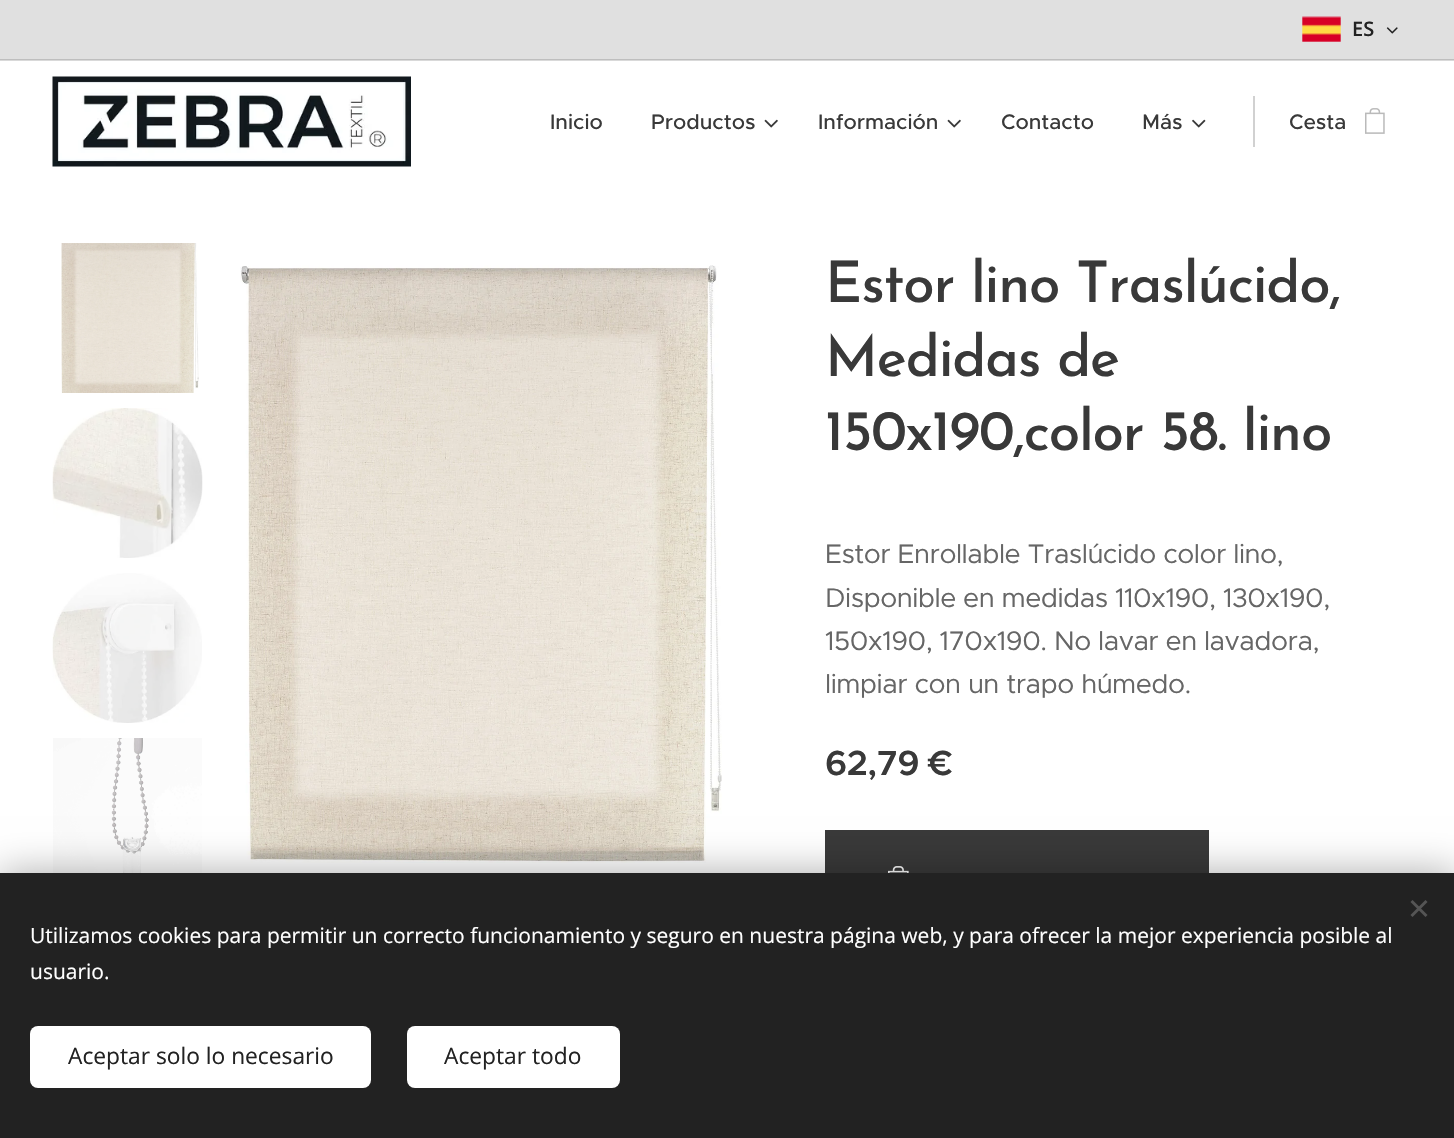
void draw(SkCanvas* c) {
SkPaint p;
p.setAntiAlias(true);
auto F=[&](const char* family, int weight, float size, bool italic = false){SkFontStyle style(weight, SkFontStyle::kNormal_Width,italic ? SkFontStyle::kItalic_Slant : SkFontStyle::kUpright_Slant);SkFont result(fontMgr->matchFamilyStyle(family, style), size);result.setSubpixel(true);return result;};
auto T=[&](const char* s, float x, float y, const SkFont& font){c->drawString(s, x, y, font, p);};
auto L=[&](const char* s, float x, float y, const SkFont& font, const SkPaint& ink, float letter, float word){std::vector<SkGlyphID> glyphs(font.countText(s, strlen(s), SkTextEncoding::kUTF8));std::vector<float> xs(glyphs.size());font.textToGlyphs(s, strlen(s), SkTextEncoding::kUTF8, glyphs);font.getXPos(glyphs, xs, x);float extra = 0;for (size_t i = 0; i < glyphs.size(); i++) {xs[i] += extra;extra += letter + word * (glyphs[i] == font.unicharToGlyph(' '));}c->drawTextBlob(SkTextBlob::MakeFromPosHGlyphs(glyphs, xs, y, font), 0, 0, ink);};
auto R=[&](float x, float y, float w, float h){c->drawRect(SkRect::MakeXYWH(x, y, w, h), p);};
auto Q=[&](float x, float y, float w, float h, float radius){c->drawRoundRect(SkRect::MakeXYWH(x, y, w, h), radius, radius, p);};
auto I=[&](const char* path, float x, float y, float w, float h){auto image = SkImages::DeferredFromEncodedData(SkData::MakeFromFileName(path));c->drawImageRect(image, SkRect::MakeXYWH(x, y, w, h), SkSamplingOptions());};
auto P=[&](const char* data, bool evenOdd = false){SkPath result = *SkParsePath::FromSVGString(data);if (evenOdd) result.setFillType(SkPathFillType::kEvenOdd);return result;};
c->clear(0xffffffff);
p.setColor(0xffd9d9d9);
R(0,60,1454,1);
p.setColor(0xffe0e0e0);
R(0,0,1454,59);
p.setColor(0xffbebebe);
R(0,59,1454,1);
I("1.png",1302,16,39,26);
auto f1 = F("Open Sans",600,20);
p.setColor(0xff222222);
T("ES",1352,36,f1);
I("2.png",1386,27,12,7);
I("3.png",52,76,359,91);
auto f2 = F("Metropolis",500,21);
p.setColor(0xff393939);
T("Inicio",550,129,f2);
T("Productos",651,129,f2);
I("4.png",764,119,14,9);
T("Información",818,129,f2);
I("4.png",947,119,14,9);
T("Contacto",1001,129,f2);
T("Más",1142,129,f2);
I("5.png",1192,119,14,9);
p.setColor(0xffd1d1d1);
R(1253,96,2,51);
p.setColor(0xff393939);
T("Cesta",1289,129,f2);
I("6.png",1365,108,20,26);
I("7.png",61,243,138,150);
I("8.png",52,408,151,150);
I("9.png",52,573,150,150);
I("10.png",53,738,149,135);
I("11.png",240,265,482,598);
auto f3 = F("Josefin Sans",500,57);
L("Estor lino Traslúcido,",825,302,f3,p,-1.2,0);
L("Medidas de",825,376,f3,p,-1.2,0);
L("150x190,color 58. lino",825,450,f3,p,-1.2,0);
auto f4 = F("Metropolis",400,27);
p.setColor(0xff666666);
L("Estor Enrollable Traslúcido color lino,",825,563,f4,p,-.5,0);
L("Disponible en medidas 110x190, 130x190,",825,607,f4,p,-.5,0);
L("150x190, 170x190. No lavar en lavadora,",825,650,f4,p,-.5,0);
L("limpiar con un trapo húmedo.",825,693,f4,p,-.5,0);
auto f5 = F("Metropolis",600,35);
p.setColor(0xff393939);
L("62,79 €",825,775,f5,p,-.5,0);
R(825,830,384,43);
I("12.png",888,866,21,7);
p.setColor(0x54000000);
p.setMaskFilter(SkMaskFilter::MakeBlur(kNormal_SkBlurStyle, 19));
c->drawRect(SkRect::MakeXYWH(0,873,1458,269),p);
p.setMaskFilter(nullptr);
p.setColor(0xff222222);
R(0,873,1454,265);
p.setColor(0xff555555);
c->drawPath(P("M1410.5 915l15-15l2 2l-15 15z"),p);
c->drawPath(P("M1412.5 900l15 15l-2 2l-15-15z"),p);
auto f6 = F("Open Sans",400,21);
p.setColor(0xffffffff);
T("Utilizamos cookies para permitir un correcto funcionamiento y seguro en nuestra página web, y para ofrecer la mejor experiencia posible al",30,943,f6);
T("usuario.",30,979,f6);
Q(30,1026,341,62,8);
auto f7 = F("Open Sans",400,22.75);
p.setColor(0xff222222);
T("Aceptar solo lo necesario",68,1064,f7);
p.setColor(0xffffffff);
Q(407,1026,213,62,8);
p.setColor(0xff222222);
T("Aceptar todo",444,1064,f7);
}
